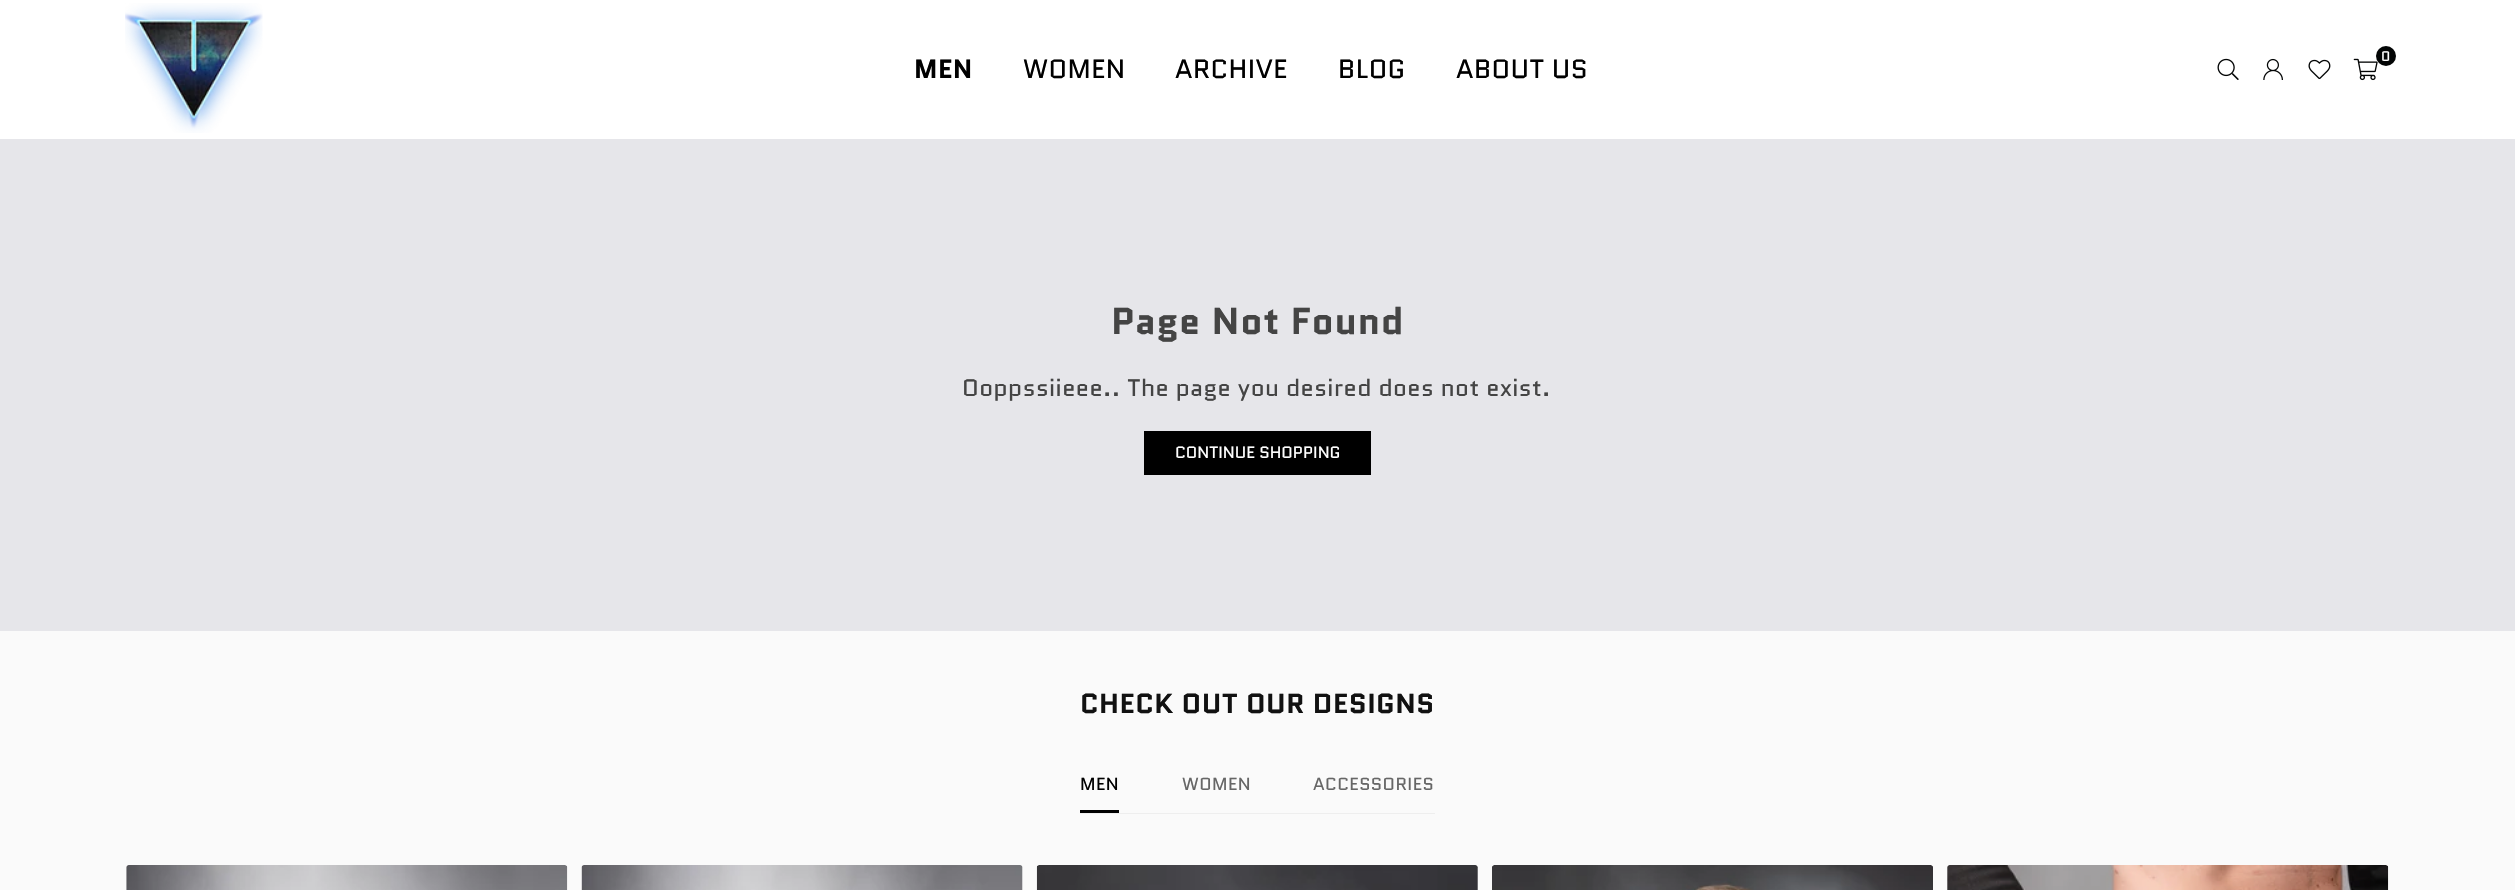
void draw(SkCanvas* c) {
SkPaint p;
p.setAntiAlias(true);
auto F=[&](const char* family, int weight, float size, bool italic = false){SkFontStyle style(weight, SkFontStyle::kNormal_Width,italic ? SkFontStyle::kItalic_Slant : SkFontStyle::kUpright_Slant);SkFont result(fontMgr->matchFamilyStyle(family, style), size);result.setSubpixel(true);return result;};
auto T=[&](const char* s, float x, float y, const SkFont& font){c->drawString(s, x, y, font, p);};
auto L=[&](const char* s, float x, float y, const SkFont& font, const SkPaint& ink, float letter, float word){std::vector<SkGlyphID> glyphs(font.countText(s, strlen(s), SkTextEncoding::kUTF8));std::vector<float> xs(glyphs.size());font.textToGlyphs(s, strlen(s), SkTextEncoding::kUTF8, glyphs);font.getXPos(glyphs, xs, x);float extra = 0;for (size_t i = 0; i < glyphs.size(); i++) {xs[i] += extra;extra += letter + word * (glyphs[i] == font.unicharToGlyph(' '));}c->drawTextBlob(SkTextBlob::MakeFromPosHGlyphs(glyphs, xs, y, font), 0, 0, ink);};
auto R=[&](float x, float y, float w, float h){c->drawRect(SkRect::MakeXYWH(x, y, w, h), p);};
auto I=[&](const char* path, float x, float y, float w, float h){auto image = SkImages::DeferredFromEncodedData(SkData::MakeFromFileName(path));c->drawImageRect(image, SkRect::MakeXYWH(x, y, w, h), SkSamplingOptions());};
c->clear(0xffe6e6ea);
p.setColor(0xffffffff);
R(0,0,2515,139);
I("1.png",125,3,138,130);
I("2.png",2353,58,25,23);
p.setColor(0xff030505);
c->drawCircle(2386,56,10,p);
auto f1 = F("Quantico",400,14);
p.setColor(0xffffffff);
L("0",2381,61,f1,p,.45,0);
I("3.png",2217,58,22,22);
I("4.png",2263,58,20,22);
I("5.png",2308,59,23,21);
auto f2 = F("Quantico",700,26.25);
p.setColor(0xff000000);
L("MEN",914,78,f2,p,.45,0);
auto f3 = F("Quantico",400,26.25);
L("WOMEN",1023,78,f3,p,.45,0);
L("ARCHIVE",1175,78,f3,p,.45,0);
L("BLOG",1338,78,f3,p,.45,0);
L("ABOUT US",1456,78,f3,p,.45,0);
auto f4 = F("Quantico",700,37.5);
p.setColor(0xff444444);
L("Page Not Found",1111,334,f4,p,.75,0);
auto f5 = F("Quantico",400,23.75);
L("Ooppssiieee.. The page you desired does not exist.",962,396,f5,p,.45,0);
p.setColor(0xff000000);
R(1144,431,227,44);
auto f6 = F("Quantico",400,16.25);
p.setColor(0xffffffff);
T("CONTINUE SHOPPING",1175,458,f6);
p.setColor(0xfffafafa);
R(0,631,2515,259);
auto f7 = F("Quantico",700,27.5);
p.setColor(0xff111111);
L("CHECK OUT OUR DESIGNS",1080,713,f7,p,.55,0);
p.setColor(0xffeeeeee);
R(1080,813,355,1);
auto f8 = F("Quantico",400,17.5);
p.setColor(0xff000000);
L("MEN",1080,790,f8,p,.45,0);
R(1080,810,39,3);
p.setColor(0xff666666);
L("WOMEN",1182,790,f8,p,.45,0);
L("ACCESSORIES",1313,790,f8,p,.45,0);
I("6.png",126,865,442,25);
I("7.png",581,865,442,25);
I("8.png",1036,865,442,25);
I("9.png",1492,865,441,25);
I("10.png",1947,865,442,25);
}
